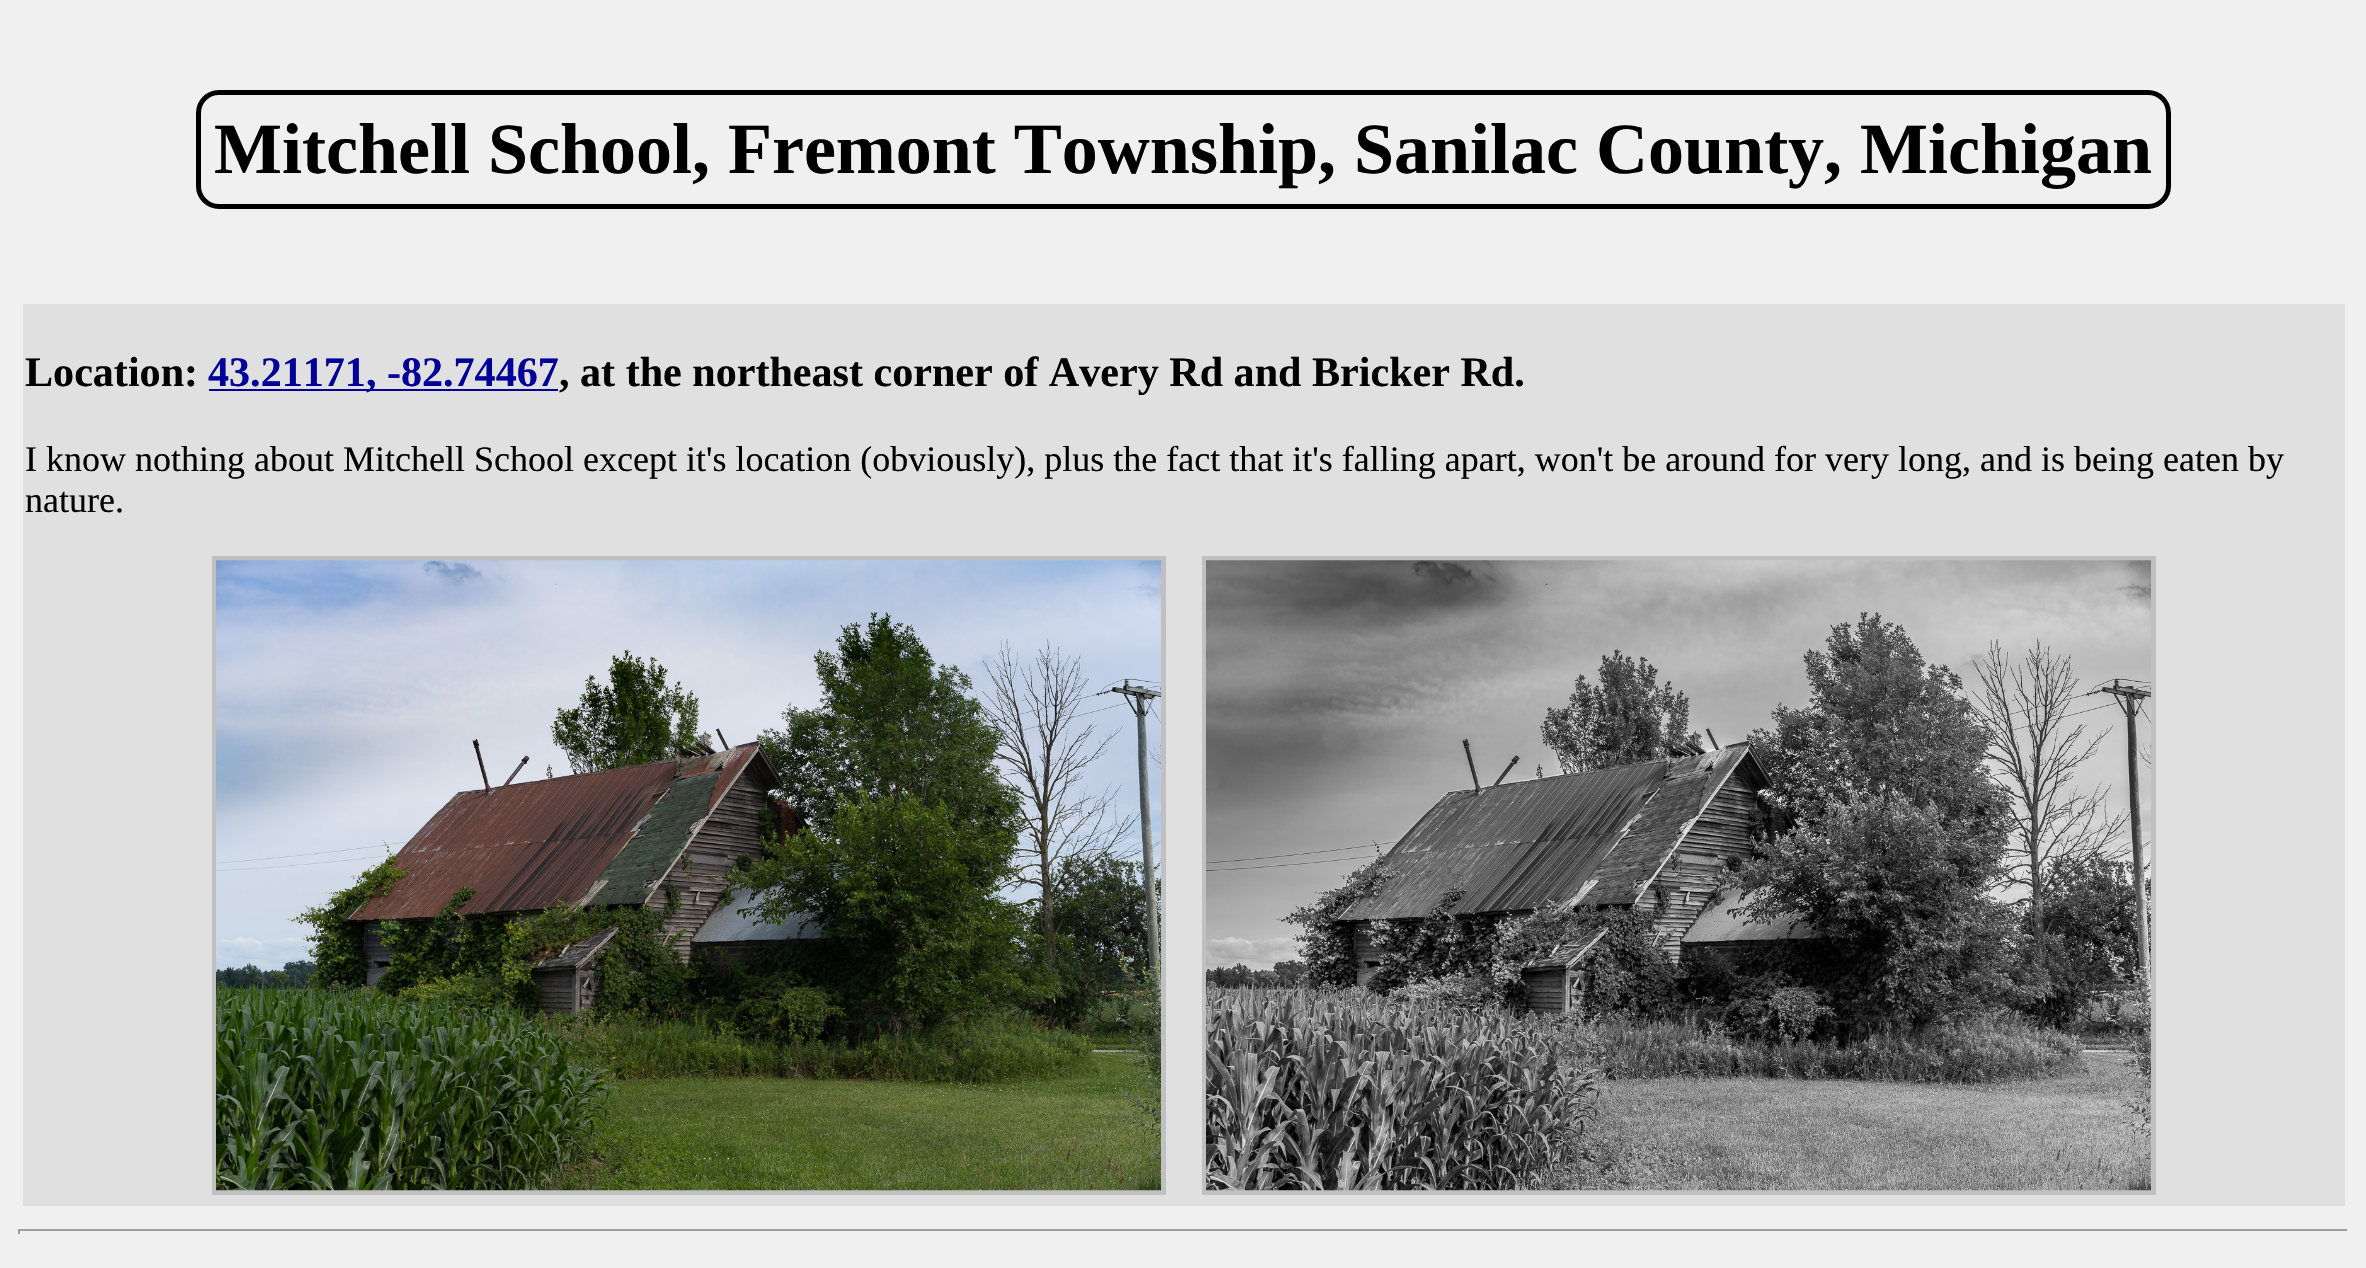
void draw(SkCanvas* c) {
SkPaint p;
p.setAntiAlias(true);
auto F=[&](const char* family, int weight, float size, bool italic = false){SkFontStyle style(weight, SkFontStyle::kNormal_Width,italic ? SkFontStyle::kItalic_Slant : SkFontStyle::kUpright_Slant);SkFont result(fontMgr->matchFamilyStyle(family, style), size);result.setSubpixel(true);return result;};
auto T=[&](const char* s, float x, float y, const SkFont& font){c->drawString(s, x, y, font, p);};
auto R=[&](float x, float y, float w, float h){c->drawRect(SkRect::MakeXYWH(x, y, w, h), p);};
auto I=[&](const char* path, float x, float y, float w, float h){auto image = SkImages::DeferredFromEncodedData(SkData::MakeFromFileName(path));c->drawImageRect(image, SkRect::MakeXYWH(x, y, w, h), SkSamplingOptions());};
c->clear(0xfff0f0f0);
p.setStroke(true);
p.setStrokeWidth(5);
p.setColor(0xff000000);
c->drawRoundRect(SkRect::MakeXYWH(198.5,92.5,1970,114),20.5,20.5,p);
auto f1 = F("Liberation Serif",700,72);
p.setStroke(false);
T("Mitchell School, Fremont Township, Sanilac County, Michigan",214,173,f1);
p.setColor(0xffe0e0e0);
R(23,304,2322,902);
auto f2 = F("Liberation Serif",700,42.1);
p.setColor(0xff000000);
T("Location:",25,386,f2);
p.setColor(0xff000099);
R(209,389,349,2);
T("43.21171, -82.74467",208,386,f2);
p.setColor(0xff000000);
T(", at the northeast corner of Avery Rd and Bricker Rd.",559,386,f2);
auto f3 = F("Liberation Serif",400,36);
T("I know nothing about Mitchell School except it's location (obviously), plus the fact that it's falling apart, won't be around for very long, and is being eaten by",25,471,f3);
T("nature.",25,512,f3);
p.setStroke(true);
p.setColor(0xffc0c0c0);
c->drawRect(SkRect::MakeXYWH(214.5,558.5,949,634),p);
c->drawRect(SkRect::MakeXYWH(1204.5,558.5,949,634),p);
I("1.png",216,560,945,631);
I("2.png",1206,560,945,631);
p.setStroke(false);
p.setColor(0xff9f9f9f);
R(18,1229,2331,2);
p.setColor(0xffeeeeee);
R(2347,1229,2,5);
p.setColor(0xff9f9f9f);
R(18,1229,2,5);
}
